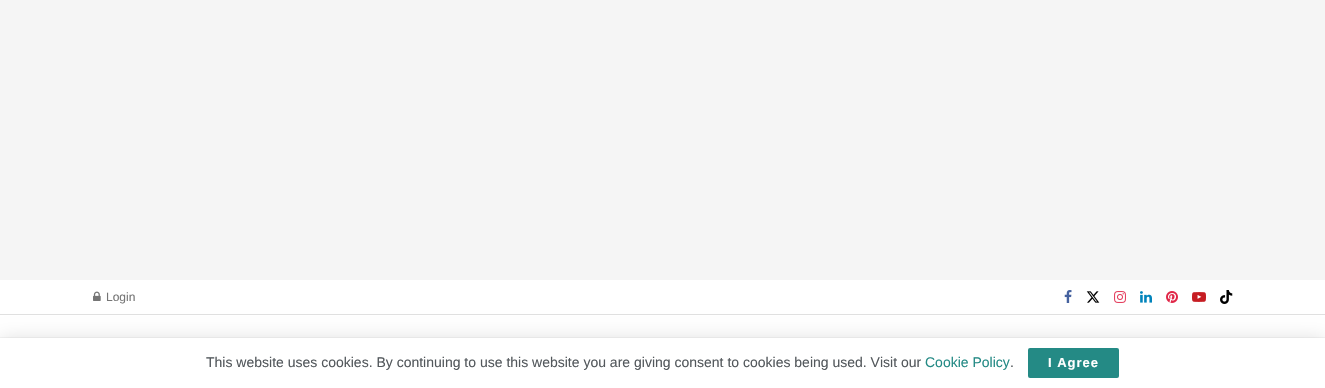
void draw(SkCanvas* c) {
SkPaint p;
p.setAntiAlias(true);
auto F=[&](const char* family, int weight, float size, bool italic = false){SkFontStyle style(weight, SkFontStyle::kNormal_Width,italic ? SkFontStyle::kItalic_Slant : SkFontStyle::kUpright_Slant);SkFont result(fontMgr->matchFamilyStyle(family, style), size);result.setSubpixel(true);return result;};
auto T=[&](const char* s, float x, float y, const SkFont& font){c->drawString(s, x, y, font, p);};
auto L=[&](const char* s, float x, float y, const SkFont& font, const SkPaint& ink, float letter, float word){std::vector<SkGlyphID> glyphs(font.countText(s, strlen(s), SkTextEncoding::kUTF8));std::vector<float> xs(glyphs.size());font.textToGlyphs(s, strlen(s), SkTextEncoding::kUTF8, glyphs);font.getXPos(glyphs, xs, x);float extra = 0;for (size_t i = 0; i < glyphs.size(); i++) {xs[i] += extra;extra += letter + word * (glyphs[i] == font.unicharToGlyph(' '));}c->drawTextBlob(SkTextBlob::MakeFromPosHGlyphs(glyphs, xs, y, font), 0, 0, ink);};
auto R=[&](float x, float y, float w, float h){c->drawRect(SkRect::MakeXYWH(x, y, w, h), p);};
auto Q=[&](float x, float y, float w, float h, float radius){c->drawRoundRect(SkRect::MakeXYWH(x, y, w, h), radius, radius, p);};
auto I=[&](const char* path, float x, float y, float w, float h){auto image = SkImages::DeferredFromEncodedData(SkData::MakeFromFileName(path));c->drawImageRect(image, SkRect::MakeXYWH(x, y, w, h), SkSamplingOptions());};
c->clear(0xffffffff);
p.setColor(0xfff5f5f5);
R(0,0,1325,280);
p.setColor(0xffe0e0e0);
R(0,314,1325,1);
I("1.png",93,291,8,10);
auto f1 = F("Liberation Sans",400,12);
p.setColor(0xff757575);
T("Login",106,301,f1);
I("2.png",1064,290,8,13);
I("3.png",1086,291,14,12);
I("4.png",1114,291,12,12);
I("5.png",1140,291,12,12);
I("6.png",1166,291,12,12);
I("7.png",1192,292,14,10);
I("8.png",1220,290,13,14);
p.setColor(0x26000000);
p.setMaskFilter(SkMaskFilter::MakeBlur(kNormal_SkBlurStyle, 10));
c->drawRect(SkRect::MakeXYWH(0,340,1325,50),p);
p.setMaskFilter(nullptr);
p.setColor(0x33000000);
p.setMaskFilter(SkMaskFilter::MakeBlur(kNormal_SkBlurStyle, .5));
c->drawRect(SkRect::MakeXYWH(0,338,1325,50),p);
p.setMaskFilter(nullptr);
p.setColor(0xffffffff);
R(0,338,1325,50);
auto f2 = F("Liberation Sans",400,14);
p.setColor(0xff53585c);
T("This website uses cookies. By continuing to use this website you are giving consent to cookies being used. Visit our",206,367,f2);
p.setColor(0xff248a85);
T("Cookie Policy",925,367,f2);
p.setColor(0xff53585c);
T(".",1010,367,f2);
p.setColor(0xff248a85);
Q(1028,348,91,30,2);
auto f3 = F("Liberation Sans",700,13);
p.setColor(0xffffffff);
L("I Agree",1048,367,f3,p,1,0);
}
